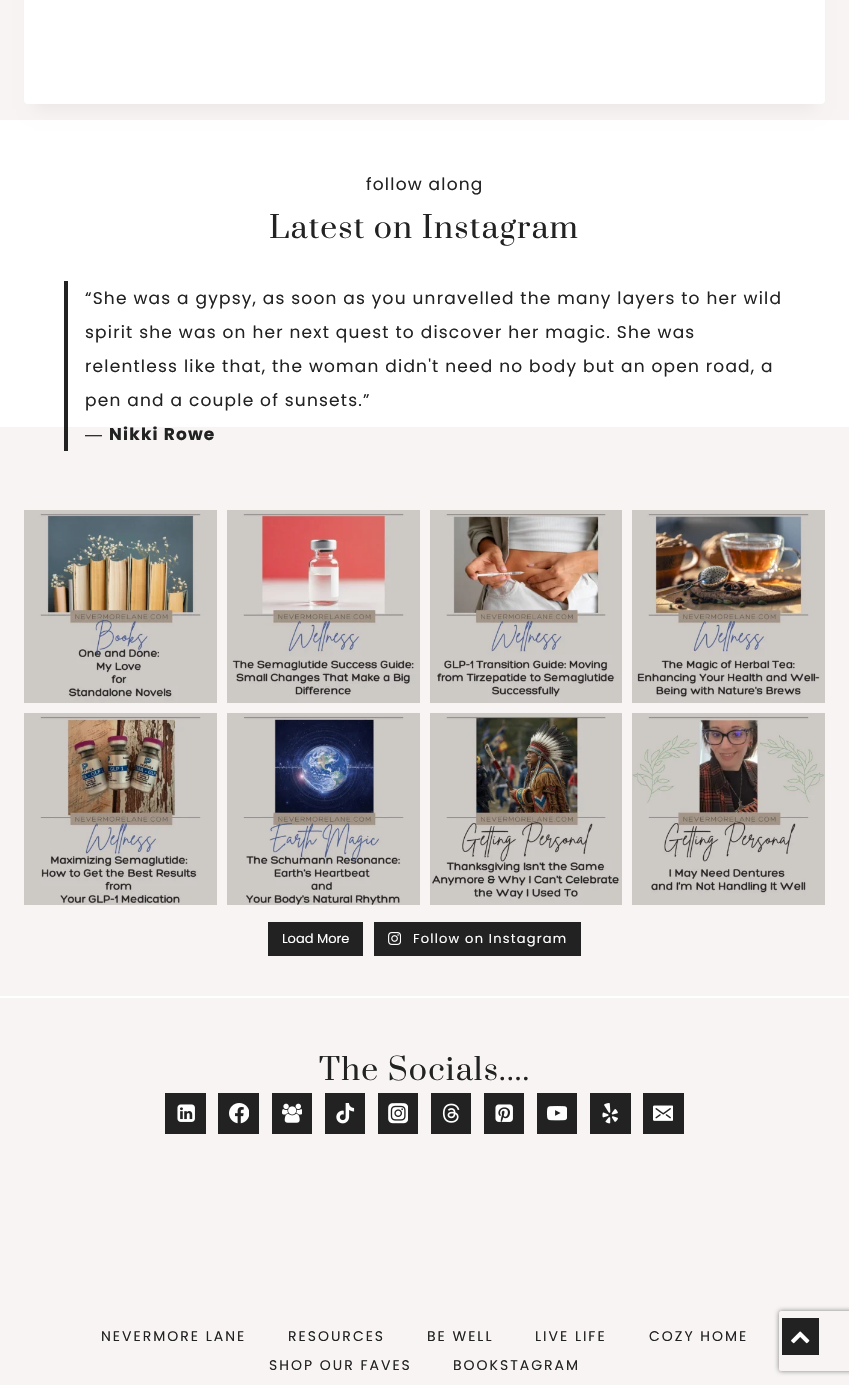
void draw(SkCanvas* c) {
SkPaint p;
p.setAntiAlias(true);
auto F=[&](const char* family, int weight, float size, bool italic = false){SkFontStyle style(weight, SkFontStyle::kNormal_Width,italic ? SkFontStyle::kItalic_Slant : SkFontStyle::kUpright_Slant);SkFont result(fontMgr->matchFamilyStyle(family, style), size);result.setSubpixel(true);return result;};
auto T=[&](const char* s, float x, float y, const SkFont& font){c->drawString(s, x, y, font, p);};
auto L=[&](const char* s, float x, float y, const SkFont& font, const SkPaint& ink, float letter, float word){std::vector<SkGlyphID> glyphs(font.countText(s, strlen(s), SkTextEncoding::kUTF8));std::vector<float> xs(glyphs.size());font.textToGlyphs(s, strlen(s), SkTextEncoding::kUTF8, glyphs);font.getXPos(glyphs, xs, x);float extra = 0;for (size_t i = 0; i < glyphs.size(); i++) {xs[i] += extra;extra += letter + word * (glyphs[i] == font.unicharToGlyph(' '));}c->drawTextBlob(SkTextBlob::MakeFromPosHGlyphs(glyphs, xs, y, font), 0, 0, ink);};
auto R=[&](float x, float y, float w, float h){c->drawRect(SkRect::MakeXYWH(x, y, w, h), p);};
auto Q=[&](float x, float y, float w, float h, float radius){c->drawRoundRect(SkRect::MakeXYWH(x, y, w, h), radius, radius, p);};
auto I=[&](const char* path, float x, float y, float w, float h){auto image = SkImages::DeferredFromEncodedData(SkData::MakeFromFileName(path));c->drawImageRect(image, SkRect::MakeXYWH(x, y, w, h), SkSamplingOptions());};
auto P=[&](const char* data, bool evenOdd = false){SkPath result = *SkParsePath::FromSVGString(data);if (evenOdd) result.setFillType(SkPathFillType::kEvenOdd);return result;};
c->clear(0xfff7f4f3);
p.setColor(0xffffffff);
R(0,120,849,307);
p.setColor(0x0d000000);
p.setMaskFilter(SkMaskFilter::MakeBlur(kNormal_SkBlurStyle, 7.5));
c->drawRect(SkRect::MakeXYWH(34,-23,781,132),p);
p.setMaskFilter(nullptr);
p.setColor(0xffffffff);
Q(24,-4,801,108,4);
R(0,996,849,2);
auto f1 = F("Poppins",400,17);
p.setColor(0xff222222);
L("follow along",366,190,f1,p,1.2,0);
auto f2 = F("Prata",400,30);
L("Latest on Instagram",269,238,f2,p,1.2,0);
R(64,281,4,170);
L("“She was a gypsy, as soon as you unravelled the many layers to her wild",85,304,f1,p,1.2,0);
L("spirit she was on her next quest to discover her magic. She was",85,338,f1,p,1.2,0);
L("relentless like that, the woman didn't need no body but an open road, a",85,372,f1,p,1.2,0);
L("pen and a couple of sunsets.”",85,406,f1,p,1.2,0);
auto f3 = F("Liberation Sans",400,17);
L("―",85,440,f3,p,1.2,0);
auto f4 = F("Poppins",700,17);
L("Nikki Rowe",109,440,f4,p,1.2,0);
I("1.png",24,510,193,193);
I("2.png",227,510,193,193);
I("3.png",430,510,192,193);
I("4.png",632,510,193,193);
I("5.png",24,713,193,192);
I("6.png",227,713,193,192);
I("7.png",430,713,192,192);
I("8.png",632,713,193,192);
R(268,922,95,34);
auto f5 = F("Poppins",400,13);
p.setColor(0xffffffff);
T("Load More",282,943,f5);
p.setColor(0xff222222);
R(374,922,207,34);
I("9.png",388,932,13,13);
p.setColor(0xffffffff);
L("Follow on Instagram",413,943,f5,p,1.2,0);
p.setColor(0xff222222);
L("The Socials....",319,1080,f2,p,1.2,0);
R(165,1093,41,41);
I("10.png",177,1104,18,18);
R(218,1093,41,41);
I("11.png",229,1103,20,21);
R(272,1093,40,41);
I("12.png",282,1103,20,20);
R(325,1093,40,41);
I("13.png",336,1103,19,21);
R(378,1093,40,41);
I("14.png",388,1103,20,21);
R(431,1093,40,41);
I("15.png",442,1103,18,20);
R(484,1093,40,41);
I("16.png",495,1104,18,18);
R(537,1093,40,41);
I("17.png",547,1106,20,15);
R(590,1093,41,41);
I("18.png",602,1103,16,21);
R(643,1093,41,41);
I("19.png",653,1105,20,16);
auto f6 = F("Poppins",400,14);
L("NEVERMORE LANE",101,1341,f6,p,2,0);
L("RESOURCES",288,1341,f6,p,2,0);
L("BE WELL",427,1341,f6,p,2,0);
L("LIVE LIFE",535,1341,f6,p,2,0);
L("COZY HOME",649,1341,f6,p,2,0);
L("SHOP OUR FAVES",269,1370,f6,p,2,0);
L("BOOKSTAGRAM",453,1370,f6,p,2,0);
c->save();
c->clipPath(P("M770 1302h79v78h-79zm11 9h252c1 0 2 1 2 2v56c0 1-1 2-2 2h-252c-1 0-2-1-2-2v-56c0-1 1-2 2-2z",true),true);
p.setColor(0xff808080);
p.setMaskFilter(SkMaskFilter::MakeBlur(kNormal_SkBlurStyle, 2.5));
c->drawRoundRect(SkRect::MakeXYWH(779,1311,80,60),2,2,p);
p.setMaskFilter(nullptr);
c->restore();
p.setColor(0xff222222);
R(782,1318,37,37);
I("20.png",791,1331,19,13);
}
